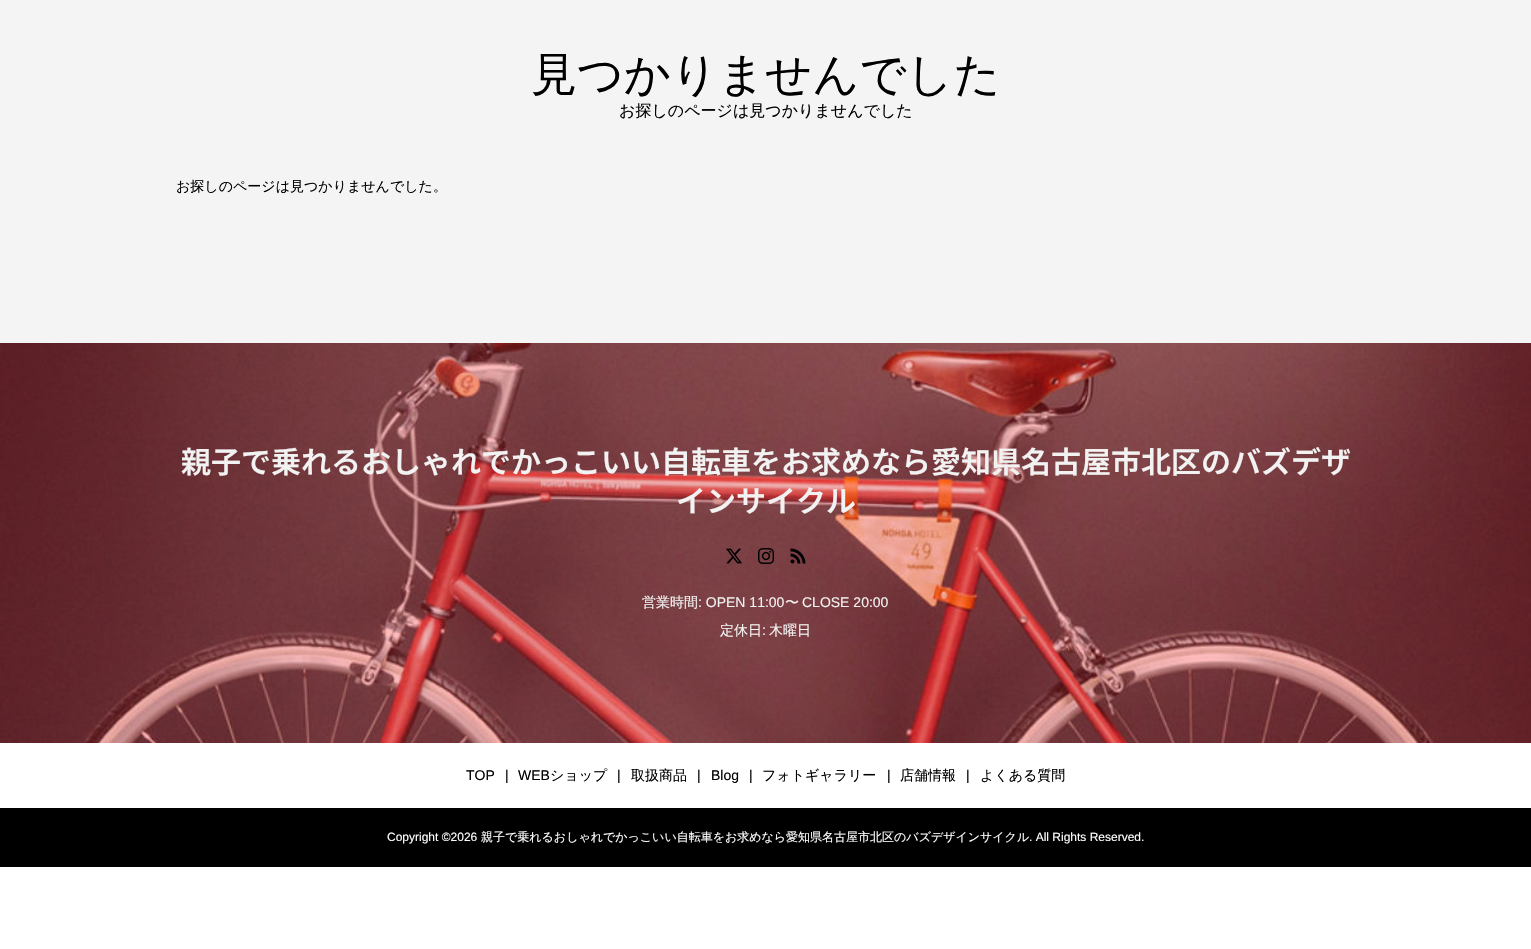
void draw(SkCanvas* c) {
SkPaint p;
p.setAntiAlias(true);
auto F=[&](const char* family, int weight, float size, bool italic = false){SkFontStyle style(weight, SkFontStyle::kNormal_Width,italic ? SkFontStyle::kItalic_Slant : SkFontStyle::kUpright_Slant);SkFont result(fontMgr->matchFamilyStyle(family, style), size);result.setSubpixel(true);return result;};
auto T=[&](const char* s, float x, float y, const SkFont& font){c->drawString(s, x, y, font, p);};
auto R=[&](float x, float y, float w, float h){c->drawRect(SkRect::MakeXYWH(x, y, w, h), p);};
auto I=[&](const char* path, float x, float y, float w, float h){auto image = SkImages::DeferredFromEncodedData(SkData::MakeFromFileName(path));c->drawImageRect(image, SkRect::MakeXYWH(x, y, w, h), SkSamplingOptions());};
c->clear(0xffffffff);
p.setColor(0xfff4f4f4);
R(0,0,1531,343);
auto f1 = F("WenQuanYi Zen Hei",500,46);
p.setColor(0xff000000);
T("見つかりませんでした",531,90,f1);
auto f2 = F("WenQuanYi Zen Hei",500,16);
T("お探しのページは見つかりませんでした",619,116,f2);
auto f3 = F("WenQuanYi Zen Hei",500,14);
T("お探しのページは見つかりませんでした。",176,191,f3);
I("1.png",0,343,1531,400);
auto f4 = F("Noto Sans JP",600,30);
p.setColor(0xfff2f2f2);
T("親子で乗れるおしゃれでかっこいい自転車をお求めなら愛知県名古屋市北区のバズデザ",181,473,f4);
T("インサイクル",676,512,f4);
I("2.png",726,548,16,16);
I("3.png",758,548,16,16);
I("4.png",790,548,16,16);
T("営業時間",642,607,f3);
auto f5 = F("Liberation Sans",400,14);
T(": OPEN 11:00",698,607,f5);
T("〜",785,607,f3);
T("CLOSE 20:00",802,607,f5);
T("定休日",720,635,f3);
T(":",762,635,f5);
T("木曜日",769,635,f3);
p.setColor(0xff000000);
T("TOP",466,780,f5);
T("|",505,780,f5);
T("WEB",518,780,f5);
T("ショップ",550,780,f3);
T("|",617,780,f5);
T("取扱商品",631,780,f3);
T("|",697,780,f5);
T("Blog",711,780,f5);
T("|",749,780,f5);
T("フォトギャラリー",762,780,f3);
T("|",887,780,f5);
T("店舗情報",900,780,f3);
T("|",966,780,f5);
T("よくある質問",980,780,f3);
R(0,808,1531,59);
auto f6 = F("Liberation Sans",400,12);
p.setColor(0xffffffff);
T("Copyright ©2026",387,841,f6);
auto f7 = F("WenQuanYi Zen Hei",500,12);
T("親子で乗れるおしゃれでかっこいい自転車をお求めなら愛知県名古屋市北区のバズデザインサイクル",481,841,f7);
T(". All Rights Reserved.",1029,841,f6);
}
